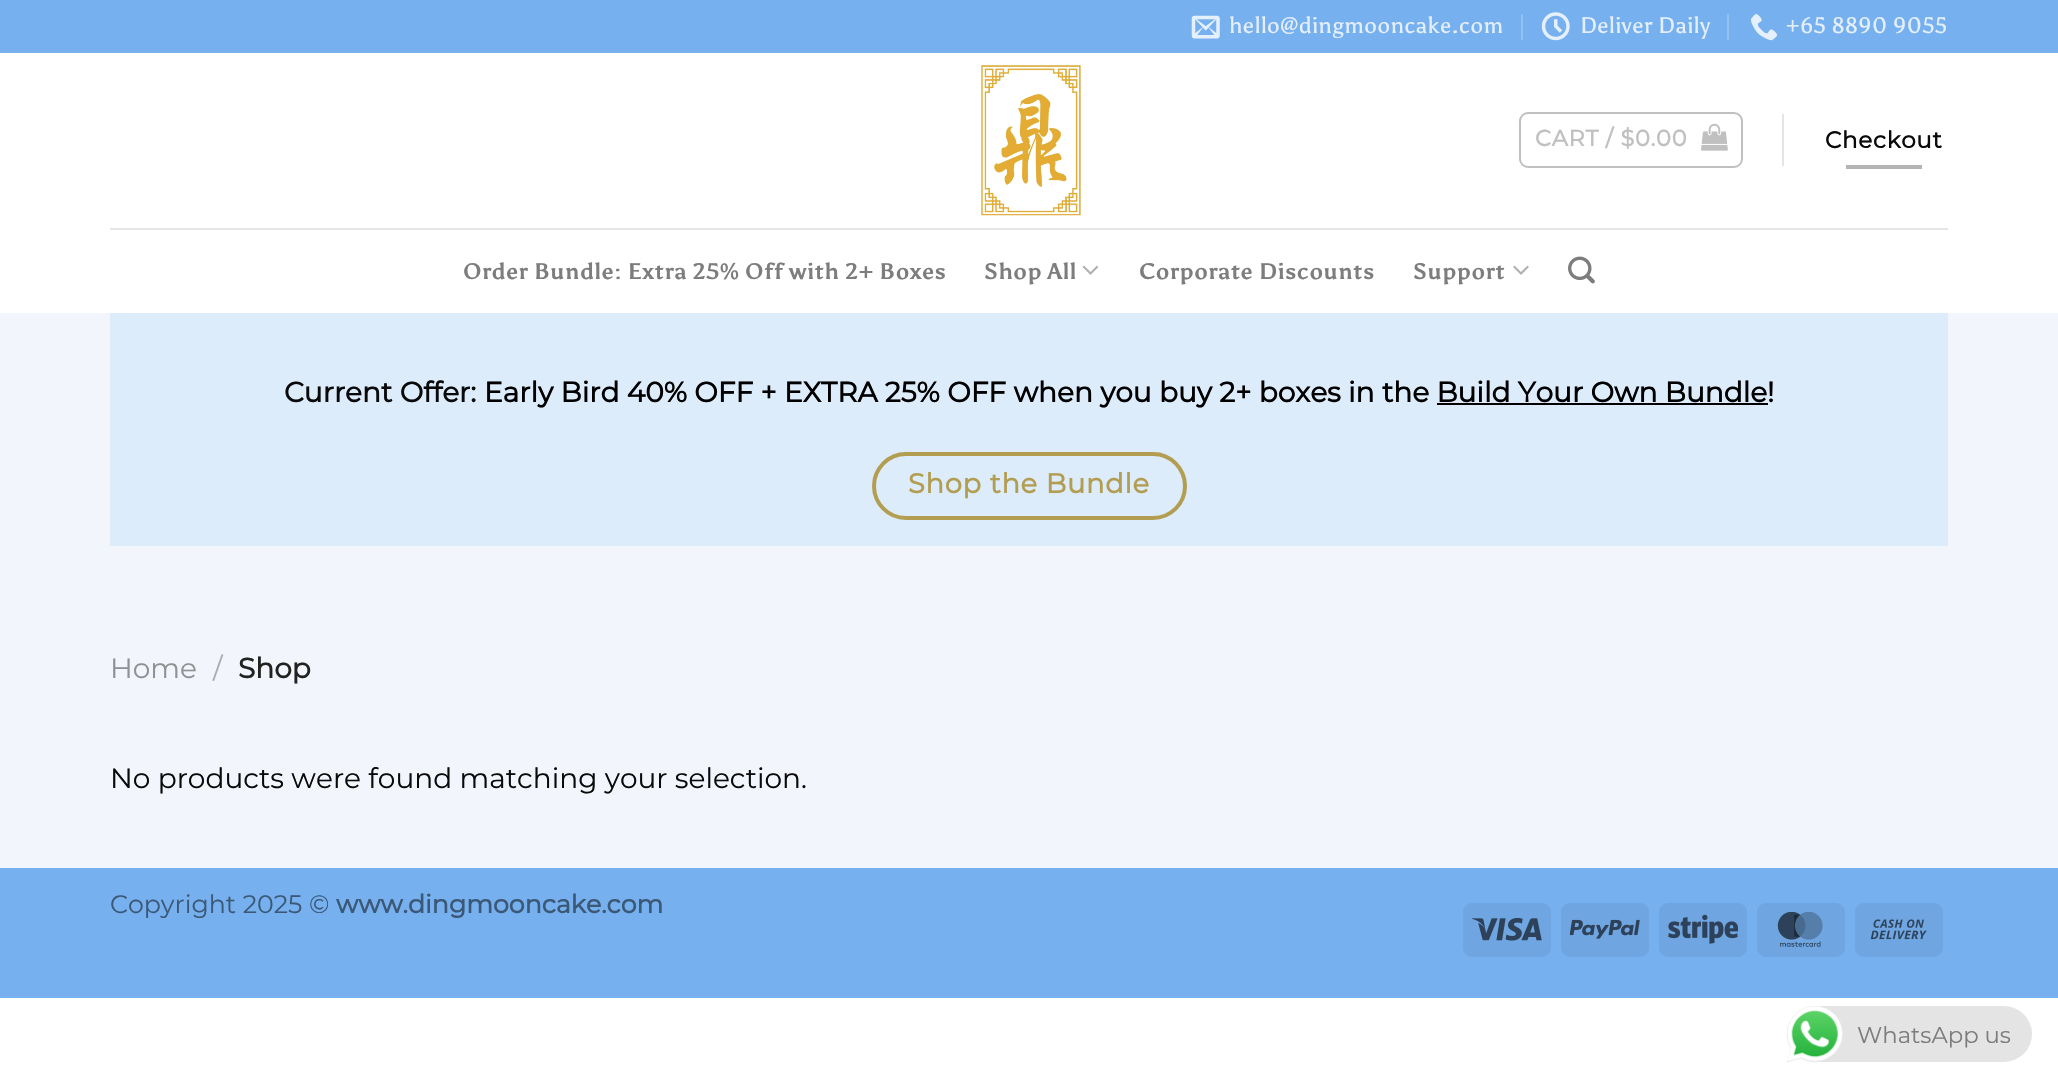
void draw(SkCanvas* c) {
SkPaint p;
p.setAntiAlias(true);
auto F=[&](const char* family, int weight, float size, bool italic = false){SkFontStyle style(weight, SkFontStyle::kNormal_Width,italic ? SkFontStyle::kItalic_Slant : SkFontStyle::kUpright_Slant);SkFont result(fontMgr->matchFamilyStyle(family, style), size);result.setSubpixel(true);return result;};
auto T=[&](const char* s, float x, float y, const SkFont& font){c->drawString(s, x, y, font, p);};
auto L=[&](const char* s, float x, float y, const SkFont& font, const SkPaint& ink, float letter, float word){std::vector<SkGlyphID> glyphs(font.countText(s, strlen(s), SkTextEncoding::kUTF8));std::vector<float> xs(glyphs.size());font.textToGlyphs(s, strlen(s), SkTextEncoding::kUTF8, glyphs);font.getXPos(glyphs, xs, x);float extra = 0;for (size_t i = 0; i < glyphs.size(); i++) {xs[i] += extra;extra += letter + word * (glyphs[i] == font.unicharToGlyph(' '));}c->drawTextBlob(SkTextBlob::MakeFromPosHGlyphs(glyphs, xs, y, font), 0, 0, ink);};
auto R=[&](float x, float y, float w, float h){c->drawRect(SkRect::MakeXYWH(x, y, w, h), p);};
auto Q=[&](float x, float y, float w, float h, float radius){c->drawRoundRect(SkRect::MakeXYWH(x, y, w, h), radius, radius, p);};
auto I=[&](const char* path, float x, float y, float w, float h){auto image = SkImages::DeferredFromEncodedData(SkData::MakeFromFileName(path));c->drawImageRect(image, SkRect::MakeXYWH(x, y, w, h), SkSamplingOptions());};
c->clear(0xffffffff);
p.setColor(0xfff2f6fc);
R(0,313,2058,555);
p.setColor(0xff76b0ee);
R(0,0,2058,53);
I("1.png",1191,15,29,24);
auto f1 = F("Asul",400,22.4);
p.setColor(0xffe4effc);
L("hello@dingmooncake.com",1229,33,f1,p,.45,0);
p.setColor(0xff91c0f1);
R(1521,14,2,26);
I("2.png",1541,12,29,29);
p.setColor(0xffe4effc);
L("Deliver Daily",1580,33,f1,p,.45,0);
p.setColor(0xff91c0f1);
R(1727,14,2,26);
I("3.png",1750,14,27,27);
p.setColor(0xffe4effc);
L("+65 8890 9055",1786,33,f1,p,.45,0);
I("4.png",981,64,100,152);
p.setStroke(true);
p.setStrokeWidth(2);
p.setColor(0xffc0c0c0);
c->drawRoundRect(SkRect::MakeXYWH(1520,113,222,54),8,8,p);
auto f2 = F("Montserrat",700,22.4);
p.setStroke(false);
L("CART / $0.00",1535,146,f2,p,.75,0);
I("5.png",1701,123,27,28);
p.setColor(0xffe5e5e6);
R(1782,114,2,52);
auto f3 = F("Montserrat",700,23);
p.setColor(0xff0a0a0a);
L("Checkout",1825,148,f3,p,.75,0);
p.setColor(0xffb5b5b6);
R(1846,165,76,4);
p.setColor(0xffe6e6e7);
R(110,228,1838,2);
auto f4 = F("Asul",700,22.4);
p.setColor(0xff7d7d7d);
L("Order Bundle: Extra 25% Off with 2+ Boxes",463,279,f4,p,.45,0);
L("Shop All",984,279,f4,p,.45,0);
I("6.png",1082,265,17,10);
L("Corporate Discounts",1139,279,f4,p,.45,0);
L("Support",1413,279,f4,p,.45,0);
I("7.png",1513,265,16,10);
I("8.png",1568,256,27,28);
p.setColor(0xffdcecfb);
R(110,313,1838,233);
auto f5 = F("Montserrat",700,28);
p.setColor(0xff0a0a0a);
T("Current Offer:",284,402,f5);
p.setColor(0xff000000);
T("Early Bird 40% OFF + EXTRA 25% OFF when you buy 2+ boxes in the Build Your Own Bundle!",484,402,f5);
R(1437,403,331,2);
p.setStroke(true);
p.setStrokeWidth(4);
p.setColor(0xffb29d51);
c->drawRoundRect(SkRect::MakeXYWH(874,454,311,64),32,32,p);
auto f6 = F("Montserrat",700,27.25);
p.setStroke(false);
L("Shop the Bundle",908,493,f6,p,.75,0);
auto f7 = F("Montserrat",100,28);
p.setColor(0xff909193);
T("Home",110,678,f7);
p.setColor(0xffa9acb0);
T("/",213,678,f7);
p.setColor(0xff222222);
T("Shop",238,678,f5);
p.setColor(0xff0a0a0a);
T("No products were found matching your selection.",110,788,f7);
p.setColor(0xff76b0ee);
R(0,868,2058,130);
auto f8 = F("Montserrat",100,25.25);
p.setColor(0xff3b5877);
T("Copyright 2025 ©",110,913,f8);
auto f9 = F("Montserrat",700,25.25);
T("www.dingmooncake.com",336,913,f9);
p.setColor(0xff6fa5e0);
Q(1463,903,88,54,9);
I("9.png",1472,917,70,24);
Q(1561,903,88,54,9);
I("10.png",1570,919,70,20);
Q(1659,903,88,54,9);
I("11.png",1668,914,70,30);
Q(1757,903,88,54,9);
I("12.png",1777,912,46,35);
Q(1855,903,88,54,9);
I("13.png",1870,919,57,21);
p.setColor(0xffe4e4e4);
Q(1787,1006,245,56,28);
I("14.png",1786,1006,57,57);
auto f10 = F("Montserrat",100,22.75);
p.setColor(0xff7d7d7d);
T("WhatsApp us",1857,1043,f10);
}
